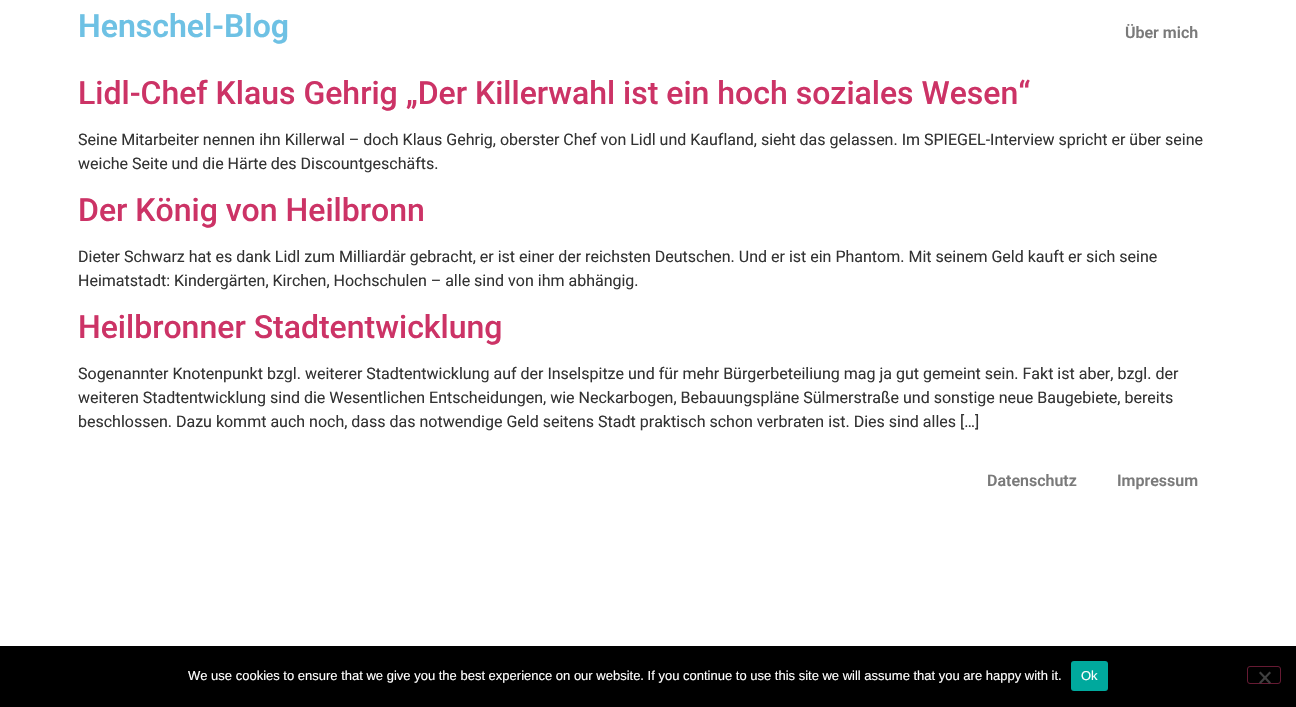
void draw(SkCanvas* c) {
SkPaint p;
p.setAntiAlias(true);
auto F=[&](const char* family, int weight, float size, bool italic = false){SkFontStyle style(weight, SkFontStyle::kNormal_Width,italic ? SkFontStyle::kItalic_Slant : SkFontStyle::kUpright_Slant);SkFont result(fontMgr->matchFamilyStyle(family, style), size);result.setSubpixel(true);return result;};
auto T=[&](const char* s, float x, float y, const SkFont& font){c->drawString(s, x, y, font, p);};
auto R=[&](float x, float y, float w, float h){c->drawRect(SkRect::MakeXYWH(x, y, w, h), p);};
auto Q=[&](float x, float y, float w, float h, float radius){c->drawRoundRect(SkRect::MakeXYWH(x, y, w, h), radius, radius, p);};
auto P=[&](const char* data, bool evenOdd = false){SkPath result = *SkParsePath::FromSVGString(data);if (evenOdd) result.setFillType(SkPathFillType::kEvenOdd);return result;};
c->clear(0xffffffff);
auto f1 = F("Roboto",600,32);
p.setColor(0xff6ec1e4);
T("Henschel-Blog",78,37,f1);
auto f2 = F("Roboto",600,16);
p.setColor(0xff7a7a7a);
T("Über mich",1125,38,f2);
auto f3 = F("Roboto",500,32);
p.setColor(0xffcc3366);
T("Lidl-Chef Klaus Gehrig „Der Killerwahl ist ein hoch soziales Wesen“",78,104,f3);
auto f4 = F("Roboto",400,16);
p.setColor(0xff333333);
T("Seine Mitarbeiter nennen ihn Killerwal – doch Klaus Gehrig, oberster Chef von Lidl und Kaufland, sieht das gelassen. Im SPIEGEL-Interview spricht er über seine",78,145,f4);
T("weiche Seite und die Härte des Discountgeschäfts.",78,169,f4);
p.setColor(0xffcc3366);
T("Der König von Heilbronn",78,221,f3);
p.setColor(0xff333333);
T("Dieter Schwarz hat es dank Lidl zum Milliardär gebracht, er ist einer der reichsten Deutschen. Und er ist ein Phantom. Mit seinem Geld kauft er sich seine",78,262,f4);
T("Heimatstadt: Kindergärten, Kirchen, Hochschulen – alle sind von ihm abhängig.",78,286,f4);
p.setColor(0xffcc3366);
T("Heilbronner Stadtentwicklung",78,338,f3);
p.setColor(0xff333333);
T("Sogenannter Knotenpunkt bzgl. weiterer Stadtentwicklung auf der Inselspitze und für mehr Bürgerbeteiliung mag ja gut gemeint sein. Fakt ist aber, bzgl. der",78,379,f4);
T("weiteren Stadtentwicklung sind die Wesentlichen Entscheidungen, wie Neckarbogen, Bebauungspläne Sülmerstraße und sonstige neue Baugebiete, bereits",78,403,f4);
T("beschlossen. Dazu kommt auch noch, dass das notwendige Geld seitens Stadt praktisch schon verbraten ist. Dies sind alles […]",78,427,f4);
p.setColor(0xff7a7a7a);
T("Datenschutz",987,486,f2);
T("Impressum",1117,486,f2);
p.setColor(0xff000000);
R(0,646,1296,61);
auto f5 = F("Liberation Sans",400,13);
p.setColor(0xffffffff);
T("We use cookies to ensure that we give you the best experience on our website. If you continue to use this site we will assume that you are happy with it.",188,680,f5);
p.setColor(0xff00a99d);
Q(1071,661,37,30,3);
p.setColor(0xffffffff);
T("Ok",1081,680,f5);
p.setStroke(true);
p.setStrokeWidth(1);
p.setColor(0xff661a33);
c->drawRoundRect(SkRect::MakeXYWH(1247.5,666.5,33,17),2.5,2.5,p);
p.setStroke(false);
p.setColor(0xff404040);
c->drawPath(P("M1269.5 671.5l1.5 1.5l-10.5 11l-1.5-1.5z"),p);
c->drawPath(P("M1259 673l1.5-1.5l10.5 11l-1.5 1.5z"),p);
}
